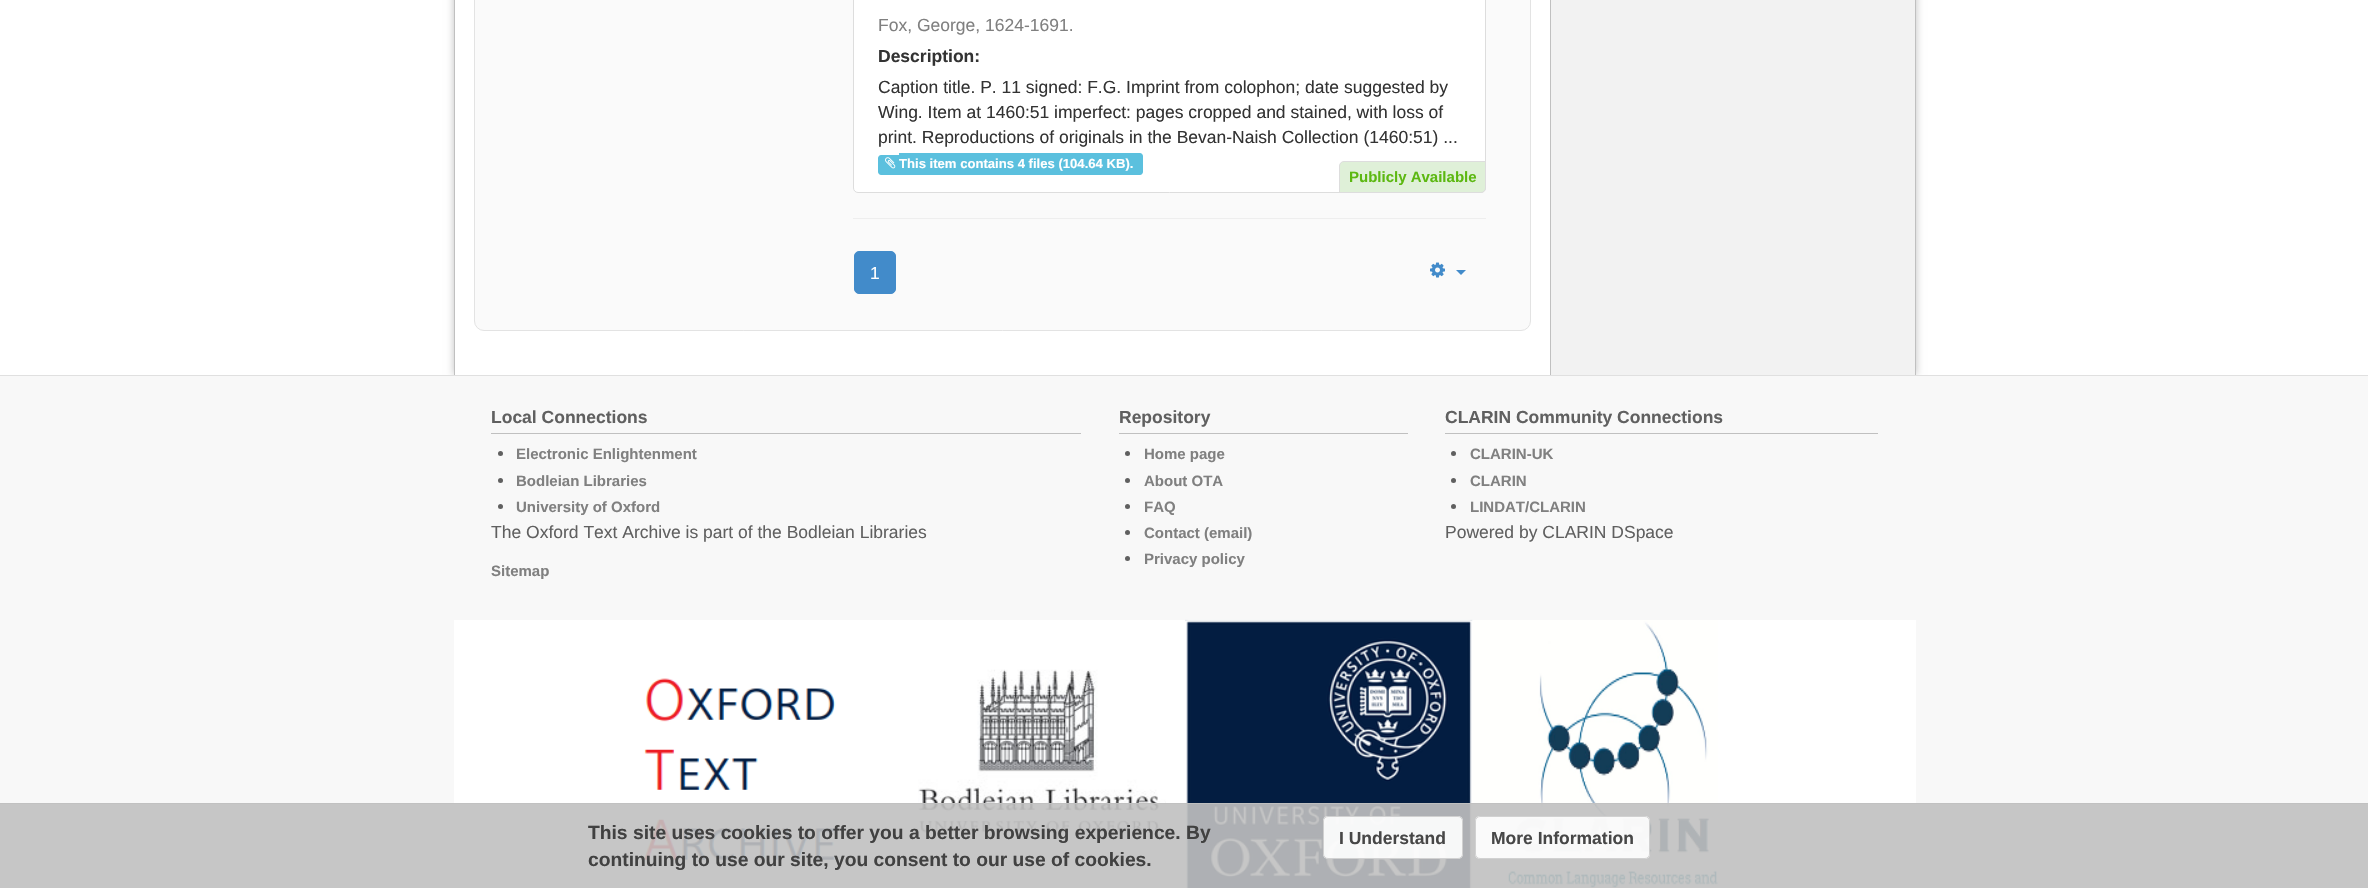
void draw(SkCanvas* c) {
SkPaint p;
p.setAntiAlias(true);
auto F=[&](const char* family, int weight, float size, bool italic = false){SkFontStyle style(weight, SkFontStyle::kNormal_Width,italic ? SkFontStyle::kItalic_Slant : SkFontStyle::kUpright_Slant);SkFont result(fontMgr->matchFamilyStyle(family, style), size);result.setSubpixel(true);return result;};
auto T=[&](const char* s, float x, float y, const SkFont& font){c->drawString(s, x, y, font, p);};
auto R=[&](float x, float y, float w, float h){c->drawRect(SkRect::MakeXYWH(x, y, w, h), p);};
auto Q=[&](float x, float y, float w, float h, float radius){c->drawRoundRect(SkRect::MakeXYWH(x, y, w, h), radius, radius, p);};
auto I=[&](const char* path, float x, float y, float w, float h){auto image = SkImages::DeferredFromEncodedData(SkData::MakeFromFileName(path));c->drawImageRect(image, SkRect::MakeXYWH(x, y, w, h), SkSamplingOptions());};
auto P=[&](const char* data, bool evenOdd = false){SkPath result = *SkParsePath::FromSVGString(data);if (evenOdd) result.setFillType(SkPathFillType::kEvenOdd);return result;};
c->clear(0xffffffff);
c->save();
c->clipPath(P("M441 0h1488v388h-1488zm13-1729h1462v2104h-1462z",true),true);
p.setColor(0xffc0c0c0);
p.setMaskFilter(SkMaskFilter::MakeBlur(kNormal_SkBlurStyle, 4));
c->drawRect(SkRect::MakeXYWH(454,-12,1462,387),p);
p.setMaskFilter(nullptr);
c->restore();
R(1915,0,1,375);
R(454,0,1,375);
p.setColor(0xfffafafa);
c->drawRoundRect(SkRect::MakeXYWH(474.5,-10.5,1056,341),9.5,9.5,p);
p.setStroke(true);
p.setStrokeWidth(1);
p.setColor(0xffe3e3e3);
c->drawRoundRect(SkRect::MakeXYWH(474.5,-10.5,1056,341),9.5,9.5,p);
p.setStroke(false);
p.setColor(0xffffffff);
c->drawRoundRect(SkRect::MakeXYWH(853.5,-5.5,632,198),4.5,4.5,p);
p.setStroke(true);
p.setColor(0xffdddddd);
c->drawRoundRect(SkRect::MakeXYWH(853.5,-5.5,632,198),4.5,4.5,p);
auto f1 = F("Liberation Sans",400,17.5);
p.setStroke(false);
p.setColor(0xff808080);
T("Fox, George, 1624-1691.",878,31,f1);
auto f2 = F("Liberation Sans",700,17.5);
p.setColor(0xff333333);
T("Description:",878,62,f2);
T("Caption title. P. 11 signed: F.G. Imprint from colophon; date suggested by",878,93,f1);
T("Wing. Item at 1460:51 imperfect: pages cropped and stained, with loss of",878,118,f1);
T("print. Reproductions of originals in the Bevan-Naish Collection (1460:51) ...",878,143,f1);
p.setColor(0xff5bc0de);
c->drawPath(P("M881 155h18v20h-18c-1.5 0-3-1.5-3-3v-14c0-1.5 1.5-3 3-3z"),p);
c->drawPath(P("M899 153h241c1.5 0 3 1.5 3 3v16c0 1.5-1.5 3-3 3h-241z"),p);
I("1.png",885,157,11,12);
auto f3 = F("Liberation Sans",700,13.1);
p.setColor(0xffffffff);
T("This item contains 4 files (104.64 KB).",899,168,f3);
p.setColor(0xffdff0d8);
c->drawPath(P("M1344 161.5h141.5v26.5c0 2.5-2 4.5-4.5 4.5h-141.5v-26.5c0-2.5 2-4.5 4.5-4.5z"),p);
p.setStroke(true);
p.setColor(0xffdddddd);
c->drawPath(P("M1344 161.5h141.5v26.5c0 2.5-2 4.5-4.5 4.5h-141.5v-26.5c0-2.5 2-4.5 4.5-4.5z"),p);
auto f4 = F("Liberation Sans",700,15);
p.setStroke(false);
p.setColor(0xff5cb811);
T("Publicly Available",1349,182,f4);
p.setColor(0xffeeeeee);
R(853,218,633,1);
p.setColor(0xff428bca);
c->drawRoundRect(SkRect::MakeXYWH(854.5,251.5,41,42),4.5,4.5,p);
p.setStroke(true);
c->drawRoundRect(SkRect::MakeXYWH(854.5,251.5,41,42),4.5,4.5,p);
p.setStroke(false);
p.setColor(0xffffffff);
T("1",870,279,f1);
I("2.png",1430,262,15,16);
p.setColor(0xff428bca);
c->drawPath(P("M1456 270h10l-5 5z"),p);
p.setColor(0xfff2f2f2);
R(1551,0,364,375);
p.setColor(0xffc0c0c0);
R(1550,0,1,375);
p.setColor(0xfff8f8f8);
R(0,376,2368,512);
p.setColor(0xffe0e0e0);
R(0,375,2368,1);
p.setColor(0xffc0c0c0);
R(491,433,590,1);
p.setColor(0xff606060);
T("Local Connections",491,423,f2);
c->drawCircle(500.5,453.5,2.5,p);
p.setColor(0xff808080);
T("Electronic Enlightenment",516,459,f4);
p.setColor(0xff606060);
c->drawCircle(500.5,480.5,2.5,p);
p.setColor(0xff808080);
T("Bodleian Libraries",516,486,f4);
p.setColor(0xff606060);
c->drawCircle(500.5,506.5,2.5,p);
p.setColor(0xff808080);
T("University of Oxford",516,512,f4);
p.setColor(0xff606060);
T("The Oxford Text Archive is part of the Bodleian Libraries",491,538,f1);
p.setColor(0xff808080);
T("Sitemap",491,576,f4);
p.setColor(0xffc0c0c0);
R(1119,433,289,1);
p.setColor(0xff606060);
T("Repository",1119,423,f2);
c->drawCircle(1127.5,453.5,2.5,p);
p.setColor(0xff808080);
T("Home page",1144,459,f4);
p.setColor(0xff606060);
c->drawCircle(1127.5,480.5,2.5,p);
p.setColor(0xff808080);
T("About OTA",1144,486,f4);
p.setColor(0xff606060);
c->drawCircle(1127.5,506.5,2.5,p);
p.setColor(0xff808080);
T("FAQ",1144,512,f4);
p.setColor(0xff606060);
c->drawCircle(1127.5,532.5,2.5,p);
p.setColor(0xff808080);
T("Contact (email)",1144,538,f4);
p.setColor(0xff606060);
c->drawCircle(1127.5,558.5,2.5,p);
p.setColor(0xff808080);
T("Privacy policy",1144,564,f4);
p.setColor(0xffc0c0c0);
R(1445,433,433,1);
p.setColor(0xff606060);
T("CLARIN Community Connections",1445,423,f2);
c->drawCircle(1453.5,453.5,2.5,p);
p.setColor(0xff808080);
T("CLARIN-UK",1470,459,f4);
p.setColor(0xff606060);
c->drawCircle(1453.5,480.5,2.5,p);
p.setColor(0xff808080);
T("CLARIN",1470,486,f4);
p.setColor(0xff606060);
c->drawCircle(1453.5,506.5,2.5,p);
p.setColor(0xff808080);
T("LINDAT/CLARIN",1470,512,f4);
p.setColor(0xff606060);
T("Powered by CLARIN DSpace",1445,538,f1);
p.setColor(0xffffffff);
R(454,620,1462,268);
I("3.png",643,678,193,182);
I("4.png",918,669,248,171);
I("5.png",1185,619,288,269);
I("6.png",1472,620,246,268);
p.setColor(0xe6c0c0c0);
R(0,803,2368,85);
R(0,803,2368,1);
auto f5 = F("Liberation Sans",700,19.25);
p.setColor(0xff414141);
T("This site uses cookies to offer you a better browsing experience. By",588,839,f5);
T("continuing to use our site, you consent to our use of cookies.",588,866,f5);
p.setColor(0xe6ffffff);
Q(1323,816,140,43,5);
p.setStroke(true);
p.setColor(0xe6cccccc);
c->drawRoundRect(SkRect::MakeXYWH(1323.5,816.5,139,42),4.5,4.5,p);
p.setStroke(false);
p.setColor(0xff474747);
T("I Understand",1339,844,f2);
p.setColor(0xe6ffffff);
Q(1475,816,175,43,5);
p.setStroke(true);
p.setColor(0xe6cccccc);
c->drawRoundRect(SkRect::MakeXYWH(1475.5,816.5,174,42),4.5,4.5,p);
p.setStroke(false);
p.setColor(0xff474747);
T("More Information",1491,844,f2);
}
